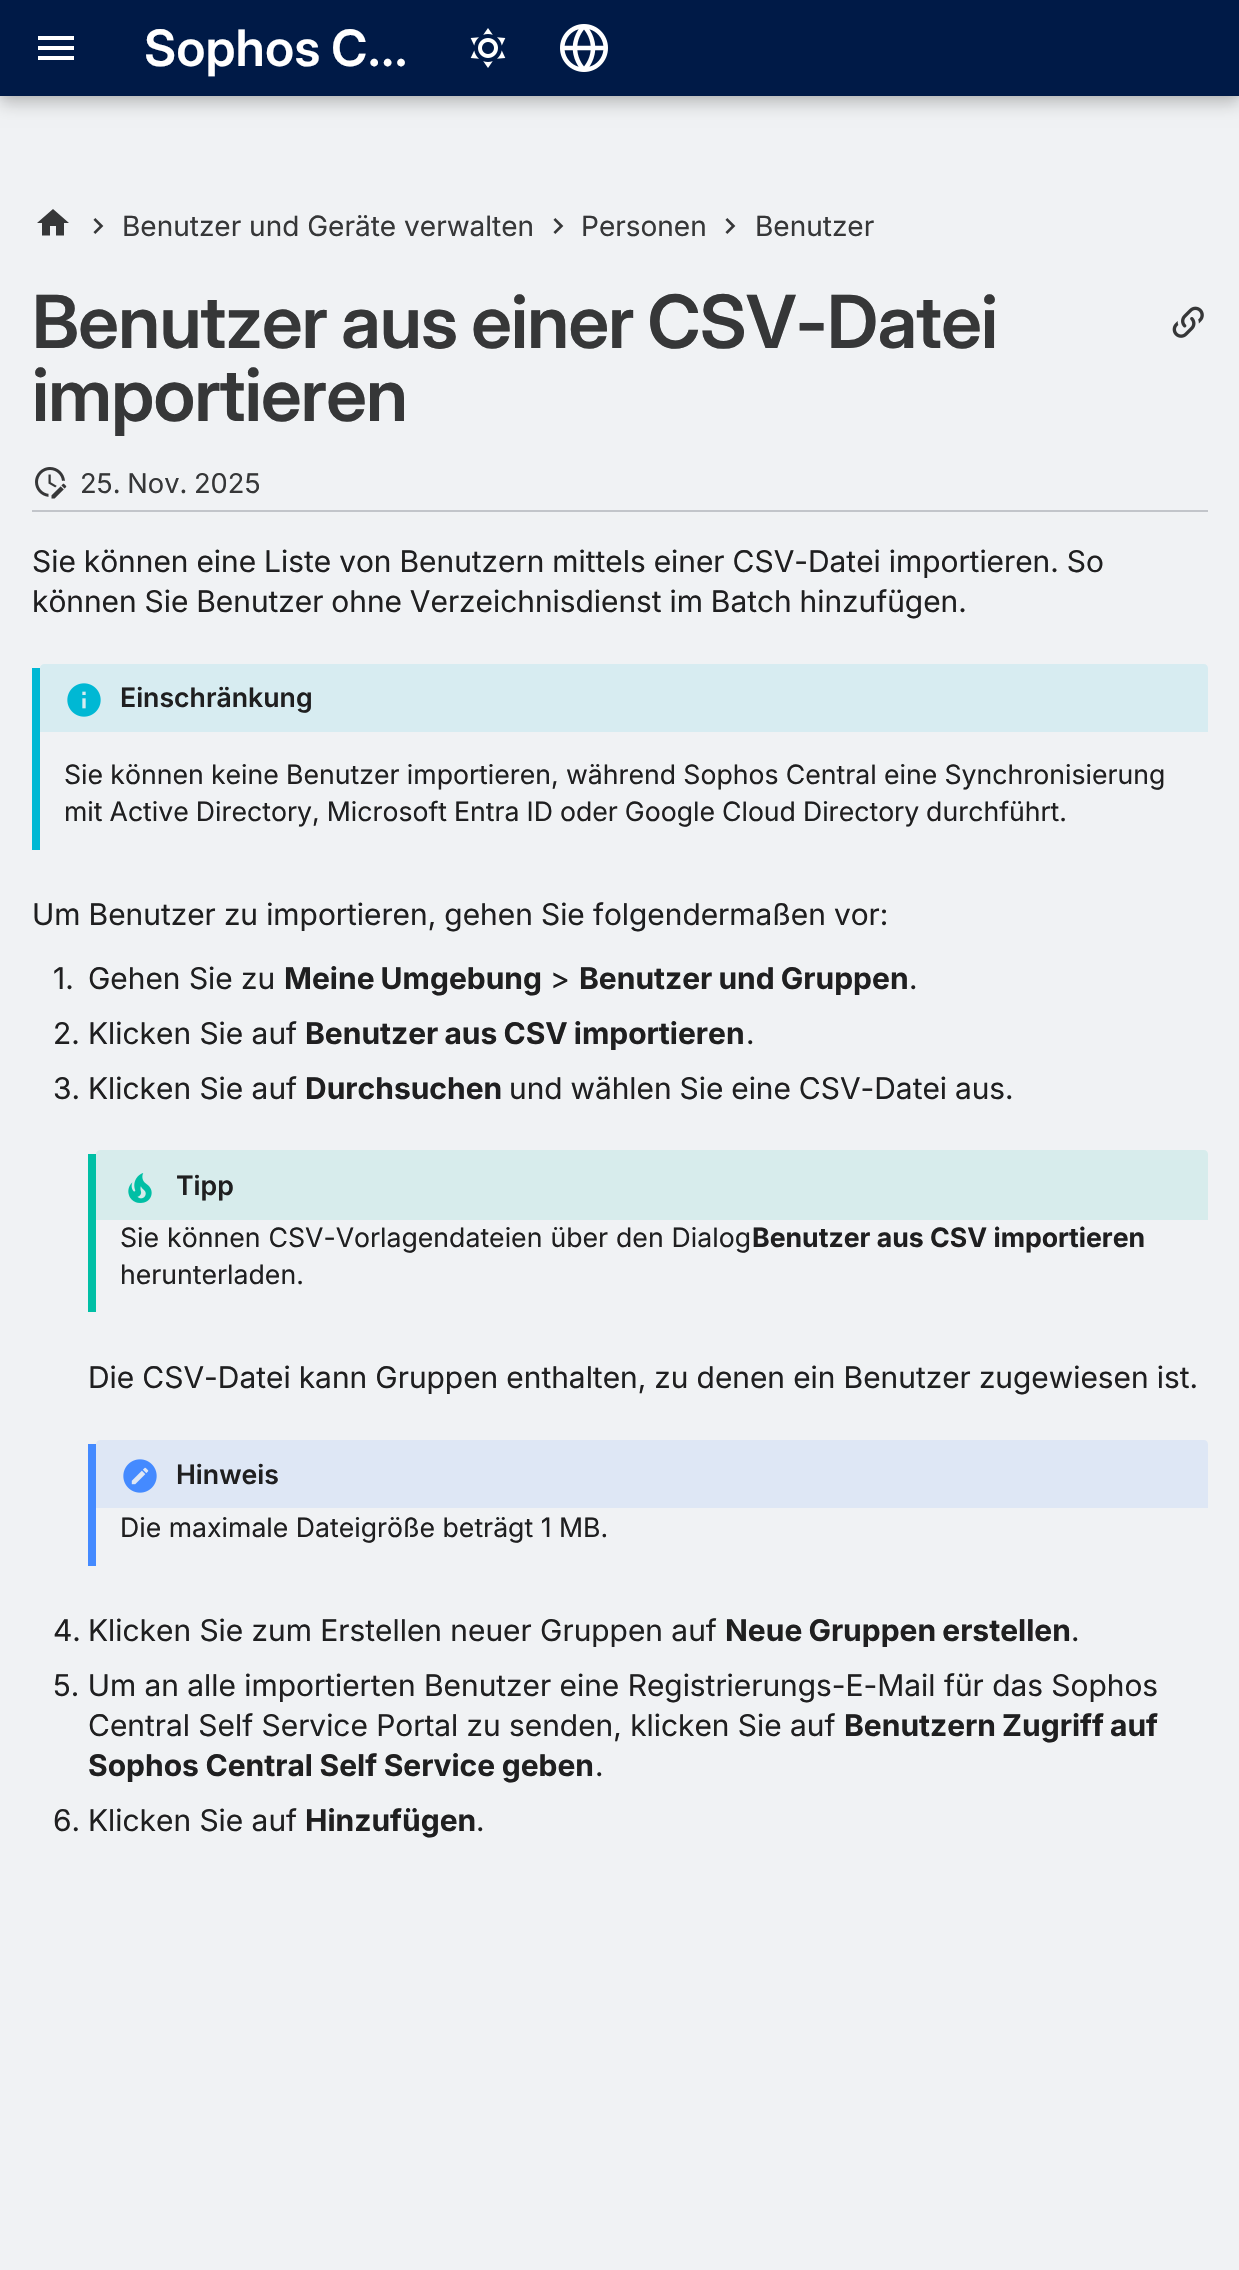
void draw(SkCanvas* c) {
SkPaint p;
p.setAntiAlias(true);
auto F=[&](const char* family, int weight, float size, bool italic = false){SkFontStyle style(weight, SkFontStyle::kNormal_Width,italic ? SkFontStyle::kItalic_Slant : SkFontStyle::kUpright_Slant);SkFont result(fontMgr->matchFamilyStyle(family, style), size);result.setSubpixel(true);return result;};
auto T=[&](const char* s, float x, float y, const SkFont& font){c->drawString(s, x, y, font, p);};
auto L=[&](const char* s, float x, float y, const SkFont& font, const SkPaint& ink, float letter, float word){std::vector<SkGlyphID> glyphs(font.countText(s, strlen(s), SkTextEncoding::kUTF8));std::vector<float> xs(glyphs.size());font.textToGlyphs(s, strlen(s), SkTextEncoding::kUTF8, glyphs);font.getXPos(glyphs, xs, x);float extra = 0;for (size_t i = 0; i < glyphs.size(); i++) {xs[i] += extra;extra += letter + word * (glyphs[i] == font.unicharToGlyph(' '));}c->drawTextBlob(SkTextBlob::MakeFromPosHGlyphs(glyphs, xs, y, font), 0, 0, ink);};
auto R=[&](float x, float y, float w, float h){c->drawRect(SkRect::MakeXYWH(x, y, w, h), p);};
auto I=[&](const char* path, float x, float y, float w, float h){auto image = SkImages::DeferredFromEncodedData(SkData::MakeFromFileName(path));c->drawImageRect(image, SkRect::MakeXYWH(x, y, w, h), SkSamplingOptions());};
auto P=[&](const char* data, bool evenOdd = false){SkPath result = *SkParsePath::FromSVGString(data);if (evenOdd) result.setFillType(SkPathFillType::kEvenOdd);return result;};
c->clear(0xfff0f2f4);
p.setColor(0x33000000);
p.setMaskFilter(SkMaskFilter::MakeBlur(kNormal_SkBlurStyle, 8));
c->drawRect(SkRect::MakeXYWH(0,8,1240,96),p);
p.setMaskFilter(nullptr);
p.setColor(0x1a000000);
p.setMaskFilter(SkMaskFilter::MakeBlur(kNormal_SkBlurStyle, 4));
c->drawRect(SkRect::MakeXYWH(0,0,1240,96),p);
p.setMaskFilter(nullptr);
p.setColor(0xff001a47);
R(0,0,1239,96);
p.setColor(0xffffffff);
c->drawPath(P("M38 36h36v4h-36zm0 10h36v4h-36zm0 10h36v4h-36z"),p);
auto f1 = F("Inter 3",600,50);
L("Sophos C…",144,66,f1,p,0,-1);
I("1.png",470,28,36,40);
I("2.png",560,24,48,48);
p.setColor(0xff363738);
c->drawPath(P("M50 235.5v-9.5h6v9.5h8v-12.5h5l-16-14l-16 14h5v12.5z"),p);
I("3.png",93,218,11,16);
auto f2 = F("Inter",400,28);
T("Benutzer und Geräte verwalten",122,236,f2);
I("3.png",553,218,11,16);
T("Personen",581,236,f2);
I("3.png",725,218,11,16);
T("Benutzer",755,236,f2);
auto f3 = F("Inter",600,73.3);
L("Benutzer aus einer CSV-Datei",32,348,f3,p,-.75,-2);
L("importieren",32,421,f3,p,-.75,0);
I("4.png",1172,306,32,32);
p.setColor(0xffc2c5ca);
R(32,510,1176,2);
I("5.png",35,467,32,32);
auto f4 = F("Inter",400,27.25);
p.setColor(0xff363738);
L("25. Nov. 2025",80,493,f4,p,0,-1);
auto f5 = F("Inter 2",400,30);
p.setColor(0xff1f1f20);
L("Sie können eine Liste von Benutzern mittels einer CSV-Datei importieren. So",32,572,f5,p,0,-.4);
L("können Sie Benutzer ohne Verzeichnisdienst im Batch hinzufügen.",32,612,f5,p,0,-.5);
p.setColor(0xff00b8d4);
R(32,668,8,182);
p.setColor(0x1a00b8d4);
c->drawPath(P("M44 664h1160c2 0 4 2 4 4v64h-1168v-64c0-2 2-4 4-4z"),p);
I("6.png",67,683,34,34);
auto f6 = F("Inter 2",600,26.65);
p.setColor(0xff1f1f20);
T("Einschränkung",120,707,f6);
auto f7 = F("Inter",400,26.65);
L("Sie können keine Benutzer importieren, während Sophos Central eine Synchronisierung",64,784,f7,p,0,-.25);
L("mit Active Directory, Microsoft Entra ID oder Google Cloud Directory durchführt.",64,821,f7,p,0,-.5);
L("Um Benutzer zu importieren, gehen Sie folgendermaßen vor:",32,925,f5,p,0,-.25);
T("1.",53,989,f5);
T("Gehen Sie zu",88,989,f5);
auto f8 = F("Inter",700,30);
L("Meine Umgebung",284,989,f8,p,0,-1);
T(">",550,989,f5);
L("Benutzer und Gruppen",579,989,f8,p,0,-1);
T(".",909,989,f5);
T("2.",53,1044,f5);
T("Klicken Sie auf",88,1044,f5);
L("Benutzer aus CSV importieren",305,1044,f8,p,0,-1);
T(".",746,1044,f5);
T("3.",53,1099,f5);
T("Klicken Sie auf",88,1099,f5);
T("Durchsuchen",305,1099,f8);
L("und wählen Sie eine CSV-Datei aus.",509,1099,f5,p,0,-.5);
p.setColor(0xff00bfa5);
R(88,1154,8,158);
p.setColor(0x1a00bfa5);
c->drawPath(P("M100 1150h1104c2 0 4 2 4 4v66h-1112v-66c0-2 2-4 4-4z"),p);
I("7.png",128,1173,24,30);
p.setColor(0xff1f1f20);
T("Tipp",176,1195,f6);
L("Sie können CSV-Vorlagendateien über den Dialog",120,1247,f7,p,0,.5);
auto f9 = F("Inter",700,26.65);
T("Benutzer aus CSV importieren",752,1247,f9);
T("herunterladen.",120,1284,f7);
L("Die CSV-Datei kann Gruppen enthalten, zu denen ein Benutzer zugewiesen ist.",88,1388,f5,p,0,-.25);
p.setColor(0xff448aff);
R(88,1444,8,122);
p.setColor(0x1a448aff);
c->drawPath(P("M100 1440h1104c2 0 4 2 4 4v64h-1112v-64c0-2 2-4 4-4z"),p);
I("8.png",123,1459,34,34);
p.setColor(0xff1f1f20);
T("Hinweis",176,1484,f6);
T("Die maximale Dateigröße beträgt 1 MB.",120,1537,f7);
T("4.",53,1641,f5);
T("Klicken Sie zum Erstellen neuer Gruppen auf",88,1641,f5);
L("Neue Gruppen erstellen",725,1641,f8,p,0,-1);
T(".",1071,1641,f5);
T("5. Um an alle importierten Benutzer eine Registrierungs-E-Mail für das Sophos",53,1696,f5);
T("Central Self Service Portal zu senden, klicken Sie auf",88,1736,f5);
L("Benutzern Zugriff auf",844,1736,f8,p,0,-1);
L("Sophos Central Self Service geben",88,1776,f8,p,0,-.5);
T(".",595,1776,f5);
T("6.",53,1831,f5);
T("Klicken Sie auf",88,1831,f5);
T("Hinzufügen",305,1831,f8);
T(".",476,1831,f5);
}
